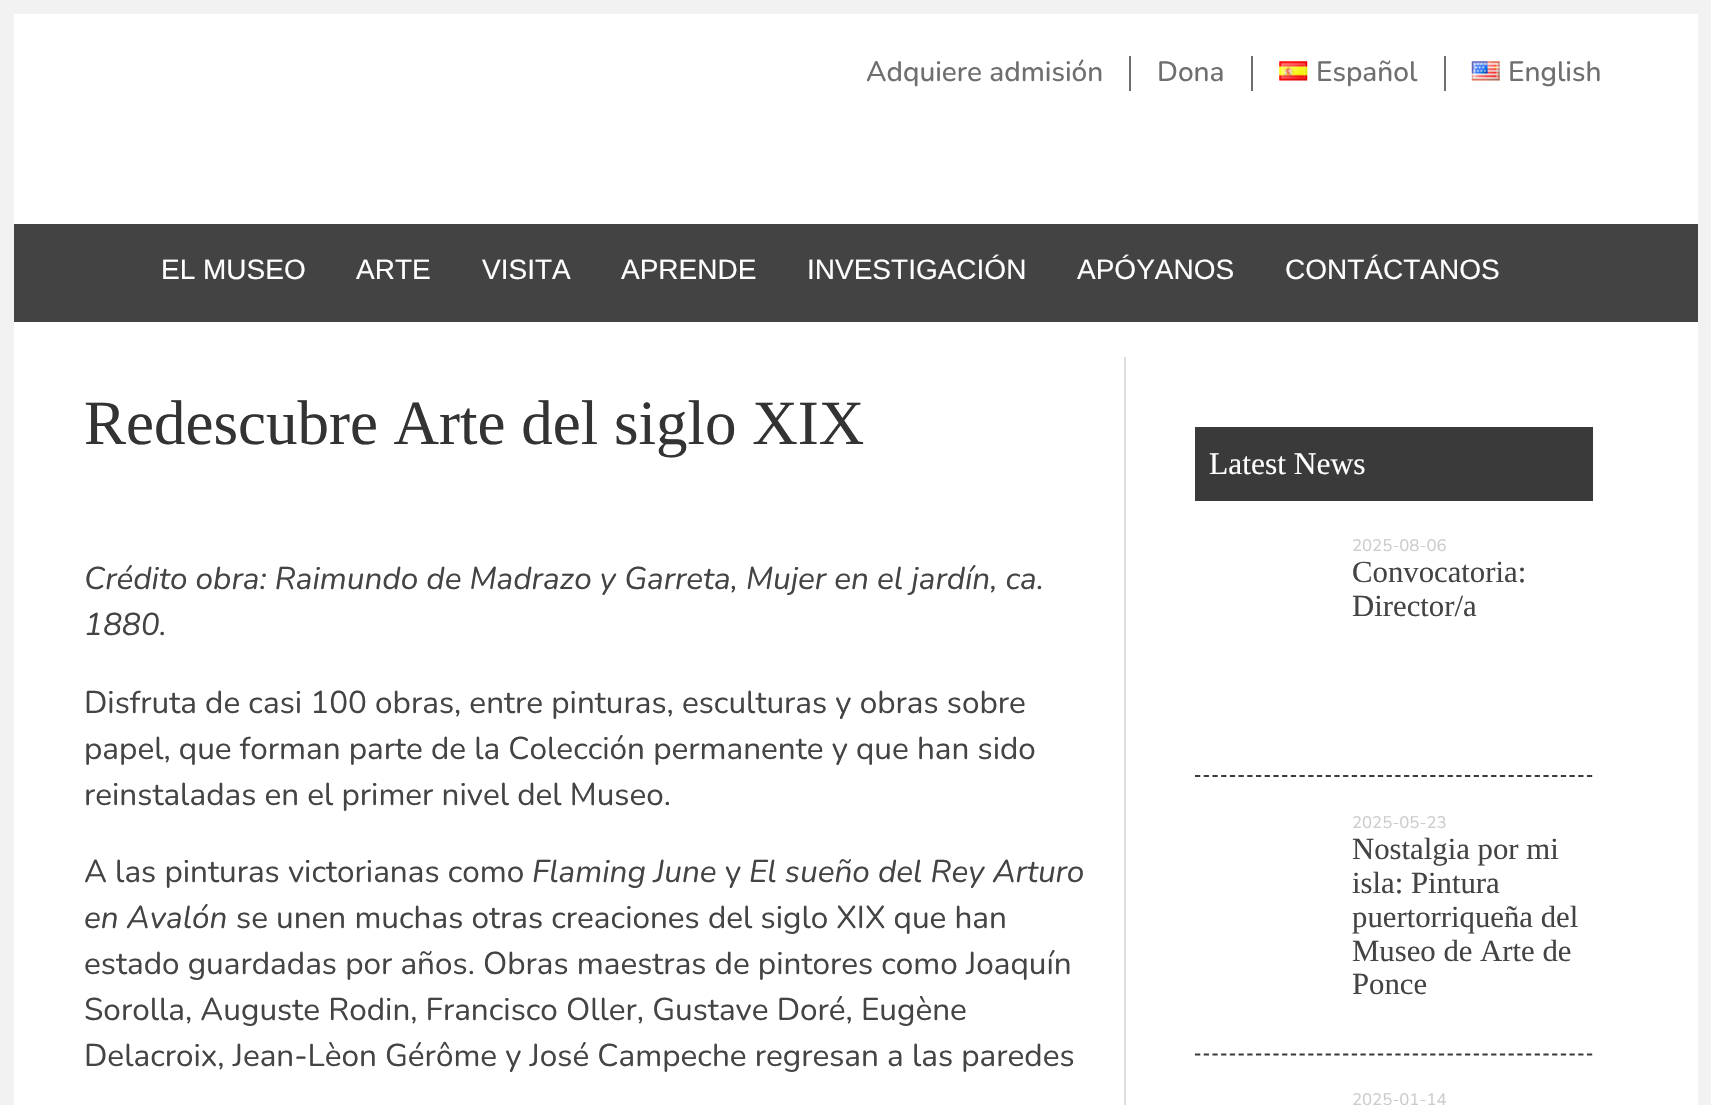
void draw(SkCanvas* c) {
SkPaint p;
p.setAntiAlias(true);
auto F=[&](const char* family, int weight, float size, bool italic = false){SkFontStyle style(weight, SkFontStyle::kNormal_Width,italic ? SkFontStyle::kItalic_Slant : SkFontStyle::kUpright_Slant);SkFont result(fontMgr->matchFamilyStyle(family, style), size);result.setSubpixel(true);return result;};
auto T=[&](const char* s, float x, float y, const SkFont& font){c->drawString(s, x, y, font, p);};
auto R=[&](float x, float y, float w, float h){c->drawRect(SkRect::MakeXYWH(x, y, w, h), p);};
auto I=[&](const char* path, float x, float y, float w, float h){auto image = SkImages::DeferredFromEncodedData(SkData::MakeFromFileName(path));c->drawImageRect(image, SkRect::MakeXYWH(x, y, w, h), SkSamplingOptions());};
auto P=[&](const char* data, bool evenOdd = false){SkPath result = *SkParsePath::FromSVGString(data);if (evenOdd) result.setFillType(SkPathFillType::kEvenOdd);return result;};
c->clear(0xfff2f2f2);
p.setColor(0xffffffff);
R(14,14,1684,210);
auto f1 = F("Nunito",500,28);
p.setColor(0xff6f6f6f);
T("Adquiere admisión",866,81,f1);
R(1129,56,2,35);
T("Dona",1157,81,f1);
R(1251,56,2,35);
I("1.png",1279,61,29,20);
T("Español",1316,81,f1);
R(1444,56,2,35);
I("2.png",1471,61,29,20);
T("English",1508,81,f1);
p.setColor(0xff434343);
R(14,224,1684,98);
auto f2 = F("Liberation Sans",400,28);
p.setColor(0xffffffff);
T("EL MUSEO",161,279,f2);
T("ARTE",356,279,f2);
T("VISITA",482,279,f2);
T("APRENDE",621,279,f2);
T("INVESTIGACIÓN",807,279,f2);
T("APÓYANOS",1077,279,f2);
T("CONTÁCTANOS",1285,279,f2);
R(14,322,1684,783);
p.setColor(0xffdddddd);
R(1124,357,2,748);
auto f3 = F("Liberation Serif",400,63);
p.setColor(0xff333333);
T("Redescubre Arte del siglo XIX",84,444,f3);
auto f4 = F("Nunito",400,31.5,true);
p.setColor(0xff444444);
T("Crédito obra: Raimundo de Madrazo y Garreta, Mujer en el jardín, ca.",84,589,f4);
T("1880.",84,635,f4);
auto f5 = F("Nunito",400,31.5);
T("Disfruta de casi 100 obras, entre pinturas, esculturas y obras sobre",84,713,f5);
T("papel, que forman parte de la Colección permanente y que han sido",84,759,f5);
T("reinstaladas en el primer nivel del Museo.",84,805,f5);
T("A las pinturas victorianas como",84,882,f5);
T("Flaming June",532,882,f4);
T("y",725,882,f5);
T("El sueño del Rey Arturo",749,882,f4);
T("en Avalón",84,928,f4);
T("se unen muchas otras creaciones del siglo XIX que han",236,928,f5);
T("estado guardadas por años. Obras maestras de pintores como Joaquín",84,974,f5);
T("Sorolla, Auguste Rodin, Francisco Oller, Gustave Doré, Eugène",84,1020,f5);
T("Delacroix, Jean-Lèon Gérôme y José Campeche regresan a las paredes",84,1066,f5);
p.setColor(0xff3a3a3a);
R(1195,427,398,74);
auto f6 = F("Liberation Serif",400,31.5);
p.setColor(0xffffffff);
T("Latest News",1209,474,f6);
p.setStroke(true);
p.setStrokeWidth(1.8);
p.setColor(0xff3a3a3a);
p.setPathEffect(SkDashPathEffect::Make({{5.25f,3.46f}}, 0));
c->drawPath(P("M1195 776h397.5"),p);
p.setPathEffect(nullptr);
auto f7 = F("Nunito",400,16.75);
p.setStroke(false);
p.setColor(0xffcccccc);
T("2025-08-06",1352,551,f7);
auto f8 = F("Liberation Serif",400,30.75);
p.setColor(0xff444444);
T("Convocatoria:",1352,582,f8);
T("Director/a",1352,616,f8);
p.setStroke(true);
p.setColor(0xff3a3a3a);
p.setPathEffect(SkDashPathEffect::Make({{5.25f,3.46f}}, 0));
c->drawPath(P("M1195 1054.5h397.5"),p);
p.setPathEffect(nullptr);
p.setStroke(false);
p.setColor(0xffcccccc);
T("2025-05-23",1352,828,f7);
p.setColor(0xff444444);
T("Nostalgia por mi",1352,859,f8);
T("isla: Pintura",1352,893,f8);
T("puertorriqueña del",1352,927,f8);
T("Museo de Arte de",1352,961,f8);
T("Ponce",1352,994,f8);
p.setColor(0xffcccccc);
T("2025-01-14",1352,1105,f7);
}
